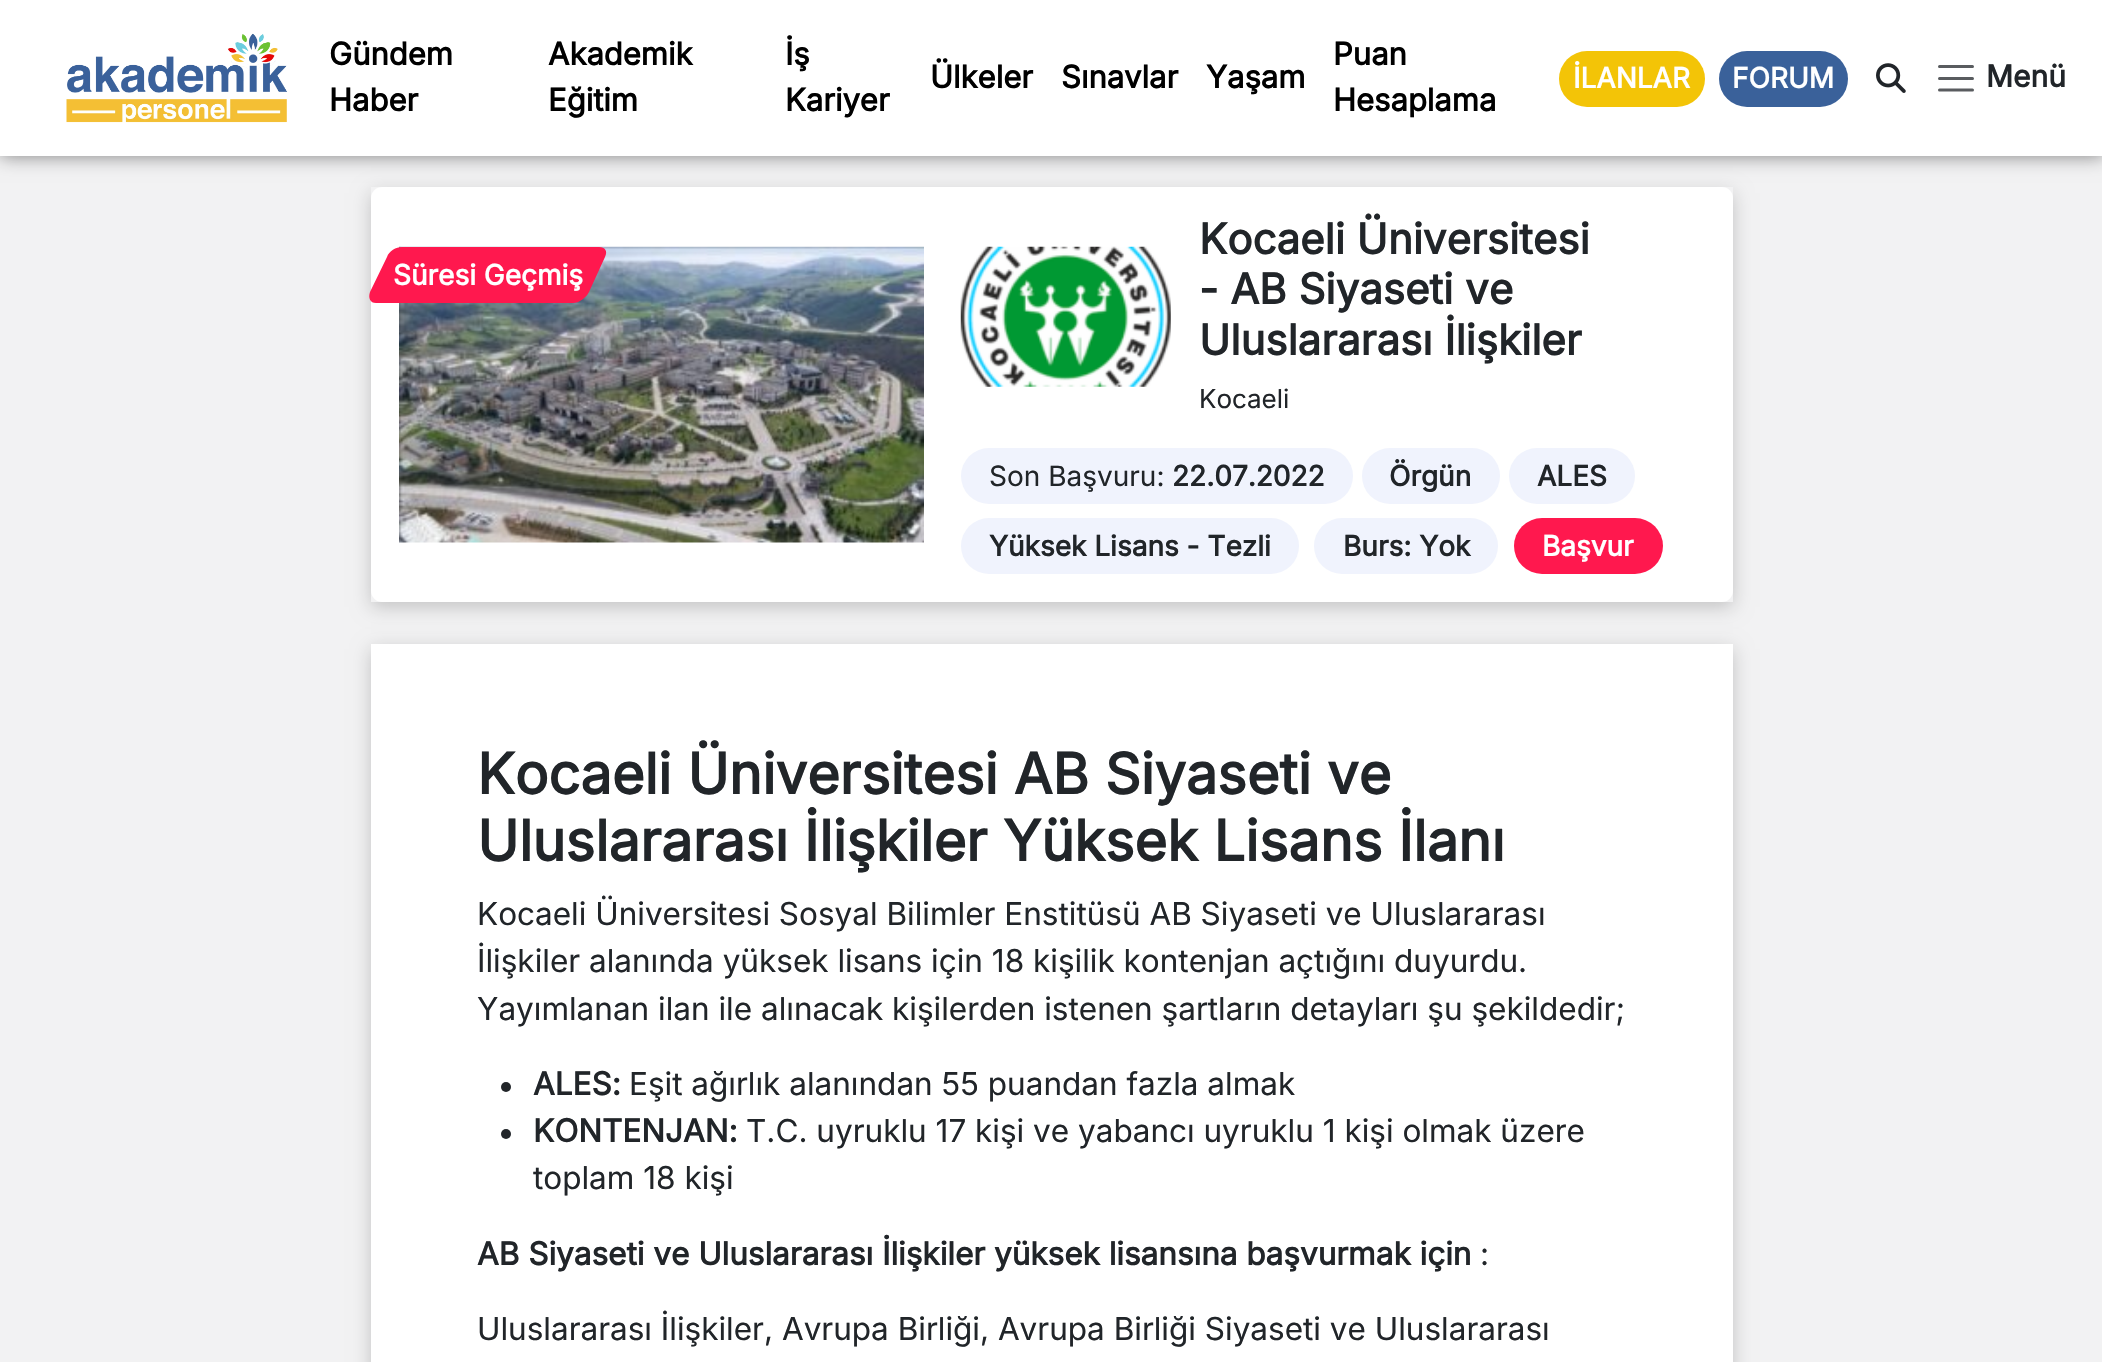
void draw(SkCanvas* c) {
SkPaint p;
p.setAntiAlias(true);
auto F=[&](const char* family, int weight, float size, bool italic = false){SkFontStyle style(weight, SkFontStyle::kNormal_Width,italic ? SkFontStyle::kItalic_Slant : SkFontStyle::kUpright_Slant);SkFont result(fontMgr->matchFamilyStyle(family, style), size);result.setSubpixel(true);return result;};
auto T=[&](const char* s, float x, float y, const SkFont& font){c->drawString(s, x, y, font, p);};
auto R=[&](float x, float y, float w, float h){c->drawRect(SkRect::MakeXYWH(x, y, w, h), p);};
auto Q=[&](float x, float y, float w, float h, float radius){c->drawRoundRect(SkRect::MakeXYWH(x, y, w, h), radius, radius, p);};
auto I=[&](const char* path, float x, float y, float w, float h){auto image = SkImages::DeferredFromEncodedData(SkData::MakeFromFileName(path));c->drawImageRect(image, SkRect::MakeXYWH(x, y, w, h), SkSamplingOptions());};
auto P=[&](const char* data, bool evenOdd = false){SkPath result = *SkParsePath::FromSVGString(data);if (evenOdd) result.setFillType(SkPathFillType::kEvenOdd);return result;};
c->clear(0xfff2f2f3);
p.setColor(0x78000000);
p.setMaskFilter(SkMaskFilter::MakeBlur(kNormal_SkBlurStyle, 9));
c->drawRect(SkRect::MakeXYWH(0,0,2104,156),p);
p.setMaskFilter(nullptr);
p.setColor(0xffffffff);
R(0,0,2102,156);
I("1.png",66,33,221,90);
auto f1 = F("Inter",700,31);
p.setColor(0xff000000);
T("Gündem",329,65,f1);
T("Haber",329,111,f1);
T("Akademik",548,65,f1);
T("Eğitim",548,111,f1);
T("İş",785,65,f1);
T("Kariyer",785,111,f1);
T("Ülkeler",930,88,f1);
T("Sınavlar",1061,88,f1);
T("Yaşam",1206,88,f1);
T("Puan",1333,65,f1);
T("Hesaplama",1333,111,f1);
p.setColor(0xfff3c407);
Q(1559,51,146,56,28);
auto f2 = F("Inter",700,28);
p.setColor(0xffffffff);
T("İLANLAR",1573,88,f2);
p.setColor(0xff3a619a);
Q(1719,51,129,56,28);
p.setColor(0xffffffff);
T("FORUM",1732,88,f2);
I("2.png",1876,63,30,30);
p.setStroke(true);
p.setStrokeWidth(3);
p.setStrokeCap(SkPaint::kRound_Cap);
p.setColor(0xff595c5f);
c->drawPath(P("M1939.5 66.5h33m-33 12h33m-33 11.5h33"),p);
auto f3 = F("Inter",700,30);
p.setStroke(false);
p.setColor(0xff212529);
T("Menü",1986,87,f3);
c->save();
c->clipPath(P("M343 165h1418v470h-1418zm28 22h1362v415h-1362z",true),true);
p.setColor(0x33000000);
p.setMaskFilter(SkMaskFilter::MakeBlur(kNormal_SkBlurStyle, 9));
c->drawRect(SkRect::MakeXYWH(371,193,1362,414),p);
p.setMaskFilter(nullptr);
c->restore();
p.setColor(0xffffffff);
Q(371,187,1362,415,11);
I("3.png",399,246,525,297);
p.setColor(0xffff184e);
c->drawPath(P("M402 247h197c6 0 9 4 6 10l-16 35c-3 6-10 11-16 11h-197c-6 0-8-5-6-11l17-35c2-6 9-10 15-10z"),p);
p.setColor(0xffffffff);
T("Süresi Geçmiş",393,285,f2);
I("4.png",960,246,211,141);
auto f4 = F("Inter",700,42);
p.setColor(0xff212529);
T("Kocaeli Üniversitesi",1199,254,f4);
T("- AB Siyaseti ve",1199,304,f4);
T("Uluslararası İlişkiler",1199,355,f4);
auto f5 = F("Inter",400,26);
T("Kocaeli",1199,408,f5);
p.setColor(0xfff0f3fd);
Q(961,448,392,56,28);
auto f6 = F("Inter",400,28);
p.setColor(0xff212529);
T("Son Başvuru:",989,486,f6);
T("22.07.2022",1172,486,f2);
p.setColor(0xfff0f3fd);
Q(1362,448,138,56,28);
p.setColor(0xff212529);
T("Örgün",1389,486,f2);
p.setColor(0xfff0f3fd);
Q(1509,448,126,56,28);
p.setColor(0xff212529);
T("ALES",1537,486,f2);
p.setColor(0xfff0f3fd);
Q(961,518,338,56,28);
p.setColor(0xff212529);
T("Yüksek Lisans - Tezli",989,556,f2);
p.setColor(0xfff0f3fd);
Q(1314,518,184,56,28);
p.setColor(0xff212529);
T("Burs: Yok",1343,556,f2);
p.setColor(0xffff184e);
Q(1514,518,149,56,28);
p.setColor(0xffffffff);
T("Başvur",1542,556,f2);
p.setColor(0x33000000);
p.setMaskFilter(SkMaskFilter::MakeBlur(kNormal_SkBlurStyle, 9));
c->drawRect(SkRect::MakeXYWH(371,649,1362,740),p);
p.setMaskFilter(nullptr);
p.setColor(0xffffffff);
R(371,644,1362,718);
auto f7 = F("Inter",700,56);
p.setColor(0xff212529);
T("Kocaeli Üniversitesi AB Siyaseti ve",477,794,f7);
T("Uluslararası İlişkiler Yüksek Lisans İlanı",477,861,f7);
auto f8 = F("Inter",400,31.5);
T("Kocaeli Üniversitesi Sosyal Bilimler Enstitüsü AB Siyaseti ve Uluslararası",477,925,f8);
T("İlişkiler alanında yüksek lisans için 18 kişilik kontenjan açtığını duyurdu.",477,972,f8);
T("Yayımlanan ilan ile alınacak kişilerden istenen şartların detayları şu şekildedir;",477,1020,f8);
c->drawCircle(506,1087,5,p);
auto f9 = F("Inter",700,31.5);
T("ALES:",533,1095,f9);
T("Eşit ağırlık alanından 55 puandan fazla almak",629,1095,f8);
c->drawCircle(506,1134,5,p);
T("KONTENJAN:",533,1142,f9);
T("T.C. uyruklu 17 kişi ve yabancı uyruklu 1 kişi olmak üzere",746,1142,f8);
T("toplam 18 kişi",533,1189,f8);
T("AB Siyaseti ve Uluslararası İlişkiler yüksek lisansına başvurmak için",477,1265,f9);
T(":",1480,1265,f8);
T("Uluslararası İlişkiler, Avrupa Birliği, Avrupa Birliği Siyaseti ve Uluslararası",477,1340,f8);
}
